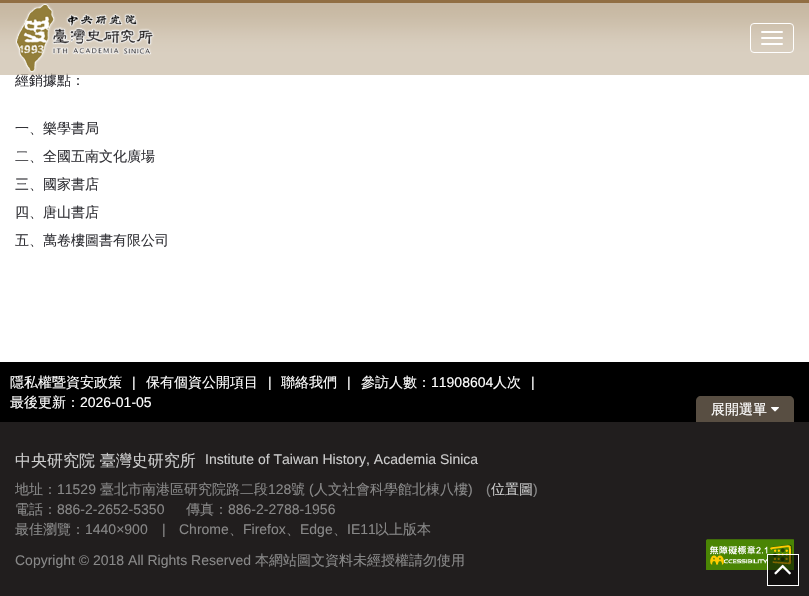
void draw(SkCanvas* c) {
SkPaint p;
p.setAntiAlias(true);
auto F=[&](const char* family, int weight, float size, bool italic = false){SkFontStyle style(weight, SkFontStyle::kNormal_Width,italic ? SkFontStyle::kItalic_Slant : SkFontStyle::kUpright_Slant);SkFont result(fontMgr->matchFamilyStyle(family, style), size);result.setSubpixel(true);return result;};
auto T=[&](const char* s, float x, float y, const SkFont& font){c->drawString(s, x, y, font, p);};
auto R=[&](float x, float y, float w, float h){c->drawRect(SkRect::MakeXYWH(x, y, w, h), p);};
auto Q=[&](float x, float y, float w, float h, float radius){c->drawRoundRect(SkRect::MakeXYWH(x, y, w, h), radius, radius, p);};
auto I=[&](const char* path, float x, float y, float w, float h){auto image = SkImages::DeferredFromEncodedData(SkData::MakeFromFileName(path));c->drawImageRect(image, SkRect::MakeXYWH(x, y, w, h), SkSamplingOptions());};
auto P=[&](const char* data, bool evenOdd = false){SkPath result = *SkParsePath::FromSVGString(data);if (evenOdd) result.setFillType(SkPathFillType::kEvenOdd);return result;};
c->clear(0xffffffff);
I("1.png",0,3,809,49);
p.setColor(0xff916e43);
R(0,0,809,3);
auto f1 = F("WenQuanYi Zen Hei",500,14);
p.setColor(0xff323237);
T("經銷據點：",15,85,f1);
p.setColor(0xb3c9baa5);
R(0,3,809,72);
I("2.png",15,3,140,70);
p.setStroke(true);
p.setStrokeWidth(1);
p.setColor(0xffffffff);
c->drawRoundRect(SkRect::MakeXYWH(750.5,23.5,43,29),3.5,3.5,p);
p.setStroke(false);
Q(761,31,22,2,1);
Q(761,37,22,2,1);
Q(761,43,22,2,1);
p.setColor(0xff323237);
T("一、樂學書局",15,133,f1);
T("二、全國五南文化廣場",15,161,f1);
T("三、國家書店",15,189,f1);
T("四、唐山書店",15,217,f1);
T("五、萬卷樓圖書有限公司",15,245,f1);
p.setColor(0xff000000);
R(0,362,809,60);
p.setColor(0xffffffff);
T("隱私權暨資安政策",10,387,f1);
auto f2 = F("Liberation Sans",400,14);
T("|",132,387,f2);
T("保有個資公開項目",146,387,f1);
T("|",268,387,f2);
T("聯絡我們",281,387,f1);
T("|",347,387,f2);
T("參訪人數：",361,387,f1);
T("11908604",431,387,f2);
T("人次",493,387,f1);
T("|",531,387,f2);
T("最後更新：",10,407,f1);
T("2026-01-05",80,407,f2);
p.setColor(0xff584e42);
c->drawPath(P("M701 396h88c3 0 5 2 5 5v21h-98v-21c0-3 2-5 5-5z"),p);
p.setColor(0xffffffff);
T("展開選單",711,414,f1);
I("3.png",771,407,8,5);
p.setColor(0xff211e1e);
R(0,422,809,174);
auto f3 = F("WenQuanYi Zen Hei",500,16);
p.setColor(0xffcccccc);
T("中央研究院 臺灣史研究所",15,466,f3);
T("Institute of Taiwan History, Academia Sinica",205,464,f2);
p.setColor(0xff888888);
T("地址：",15,494,f1);
T("11529",57,494,f2);
T("臺北市南港區研究院路二段",100,494,f1);
T("128",268,494,f2);
T("號",291,494,f1);
T("(",309,494,f2);
T("人文社會科學館北棟八樓",314,494,f1);
T(")",468,494,f2);
T("(",486,494,f2);
p.setColor(0xffcccccc);
T("位置圖",491,494,f1);
p.setColor(0xff888888);
T(")",533,494,f2);
T("電話：",15,514,f1);
T("886-2-2652-5350",57,514,f2);
T("傳真：",186,514,f1);
T("886-2-2788-1956",228,514,f2);
T("最佳瀏覽：",15,534,f1);
T("1440×900",85,534,f2);
T("|",162,534,f2);
T("Chrome",179,534,f2);
T("、",229,534,f1);
T("Firefox",243,534,f2);
T("、",286,534,f1);
T("Edge",300,534,f2);
T("、",333,534,f1);
T("IE11",347,534,f2);
T("以上版本",375,534,f1);
T("Copyright © 2018 All Rights Reserved",15,565,f2);
T("本網站圖文資料未經授權請勿使用",255,565,f1);
I("4.png",706,539,88,31);
p.setColor(0x80000000);
c->drawRect(SkRect::MakeXYWH(767.5,554.5,31,31),p);
p.setStroke(true);
p.setColor(0xffffffff);
c->drawRect(SkRect::MakeXYWH(767.5,554.5,31,31),p);
I("5.png",774,564,17,11);
}
